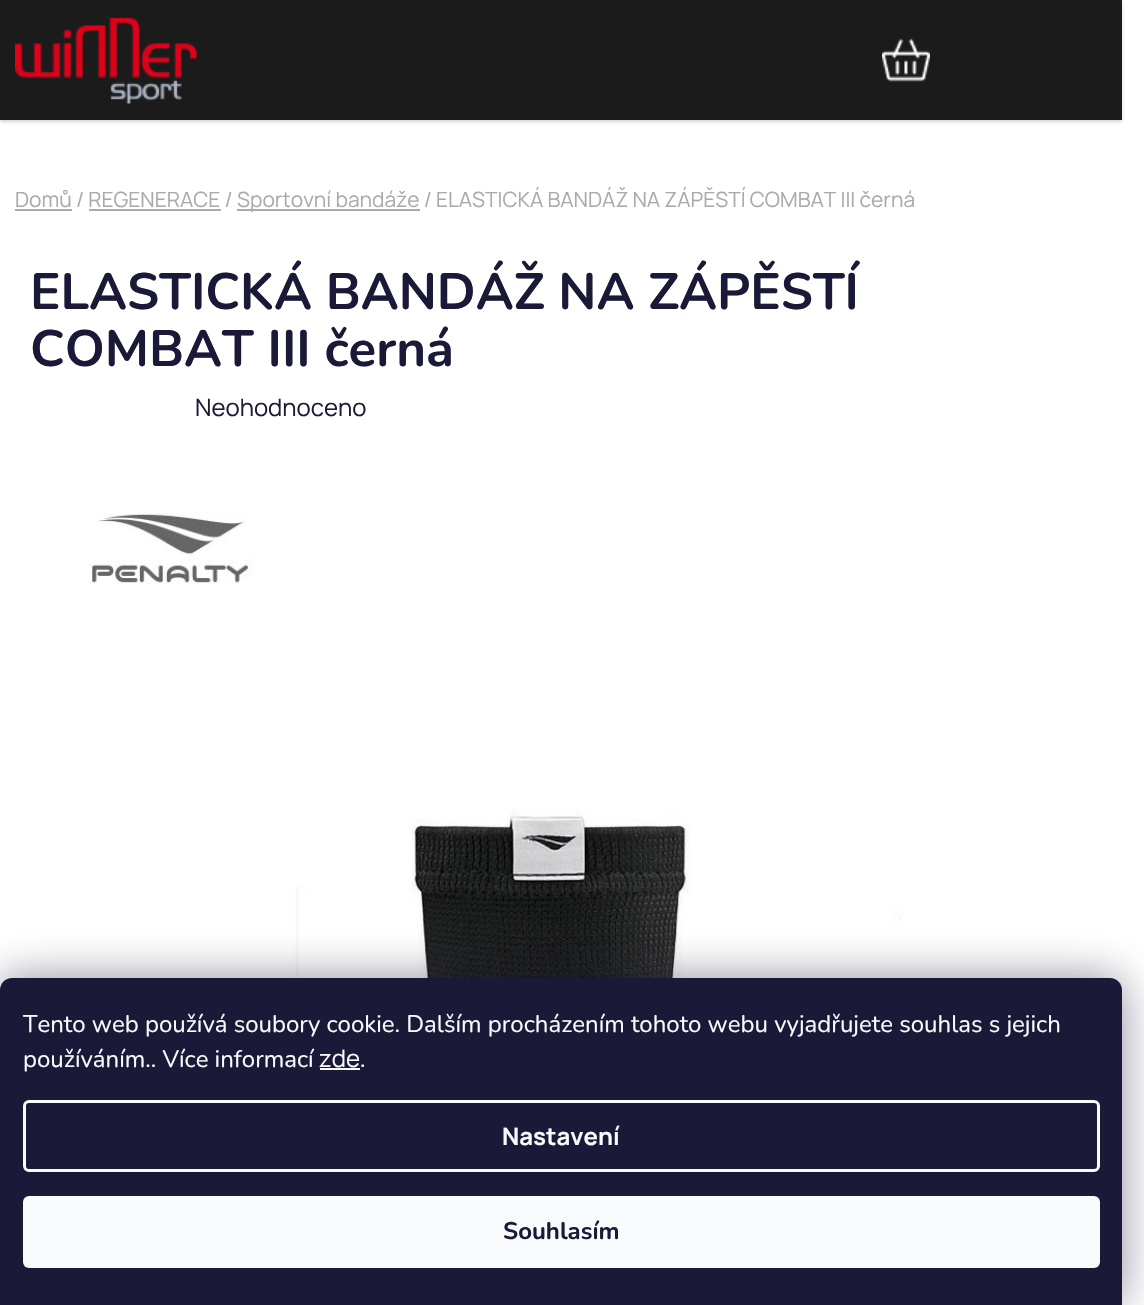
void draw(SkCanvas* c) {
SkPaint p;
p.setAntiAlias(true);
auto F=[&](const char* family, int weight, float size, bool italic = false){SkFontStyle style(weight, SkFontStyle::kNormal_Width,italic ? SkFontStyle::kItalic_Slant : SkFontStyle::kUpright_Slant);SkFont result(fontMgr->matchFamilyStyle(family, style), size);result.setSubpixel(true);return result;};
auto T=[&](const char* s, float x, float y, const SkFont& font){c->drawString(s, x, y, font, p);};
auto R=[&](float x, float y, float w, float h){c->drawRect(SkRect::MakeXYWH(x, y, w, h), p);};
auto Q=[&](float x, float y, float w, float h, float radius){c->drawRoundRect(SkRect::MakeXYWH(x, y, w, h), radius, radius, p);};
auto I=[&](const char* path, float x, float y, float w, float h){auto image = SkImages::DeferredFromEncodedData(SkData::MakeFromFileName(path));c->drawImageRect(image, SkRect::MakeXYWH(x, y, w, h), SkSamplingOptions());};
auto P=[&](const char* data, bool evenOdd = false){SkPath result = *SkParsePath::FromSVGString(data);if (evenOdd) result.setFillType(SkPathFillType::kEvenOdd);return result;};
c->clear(0xffffffff);
p.setColor(0x29000000);
p.setMaskFilter(SkMaskFilter::MakeBlur(kNormal_SkBlurStyle, 1.5));
c->drawRect(SkRect::MakeXYWH(0,2,1122,120),p);
p.setMaskFilter(nullptr);
p.setColor(0xff1b1b1b);
R(0,0,1122,120);
I("1.png",15,17,182,87);
I("2.png",882,38,48,44);
auto f1 = F("Manrope",400,21);
p.setColor(0xffaaaaaa);
T("Domů / REGENERACE /",15,207,f1);
R(15,209,57,2);
R(237,209,183,2);
T("Sportovní bandáže / ELASTICKÁ BANDÁŽ NA ZÁPĚSTÍ COMBAT III černá",237,207,f1);
R(89,209,132,2);
auto f2 = F("Nunito",700,51);
p.setColor(0xff1a1937);
T("ELASTICKÁ BANDÁŽ NA ZÁPĚSTÍ",30,309,f2);
T("COMBAT III černá",30,366,f2);
auto f3 = F("Manrope",400,24);
T("Neohodnoceno",195,416,f3);
I("3.png",89,511,937,467);
p.setColor(0x801b1939);
p.setMaskFilter(SkMaskFilter::MakeBlur(kNormal_SkBlurStyle, 22.5));
c->drawRoundRect(SkRect::MakeXYWH(0,978,1122,327),12,12,p);
p.setMaskFilter(nullptr);
p.setColor(0xff1a1937);
c->drawPath(P("M12 978h1098c6.5 0 12 5.5 12 12v315h-1122v-315c0-6.5 5.5-12 12-12z"),p);
auto f4 = F("Nunito",400,24);
p.setColor(0xfff8fafb);
T("Tento web používá soubory cookie. Dalším procházením tohoto webu vyjadřujete souhlas s jejich",23,1032,f4);
T("používáním.. Více informací",23,1067,f4);
T("zde",319,1067,f3);
R(320,1068,40,2);
T(".",360,1067,f4);
p.setStroke(true);
p.setStrokeWidth(3);
c->drawRoundRect(SkRect::MakeXYWH(24.5,1101.5,1074,69),4.5,4.5,p);
auto f5 = F("Manrope",700,24);
p.setStroke(false);
T("Nastavení",502,1145,f5);
Q(23,1196,1077,72,6);
auto f6 = F("Nunito",700,24);
p.setColor(0xff1a1937);
T("Souhlasím",503,1239,f6);
}
